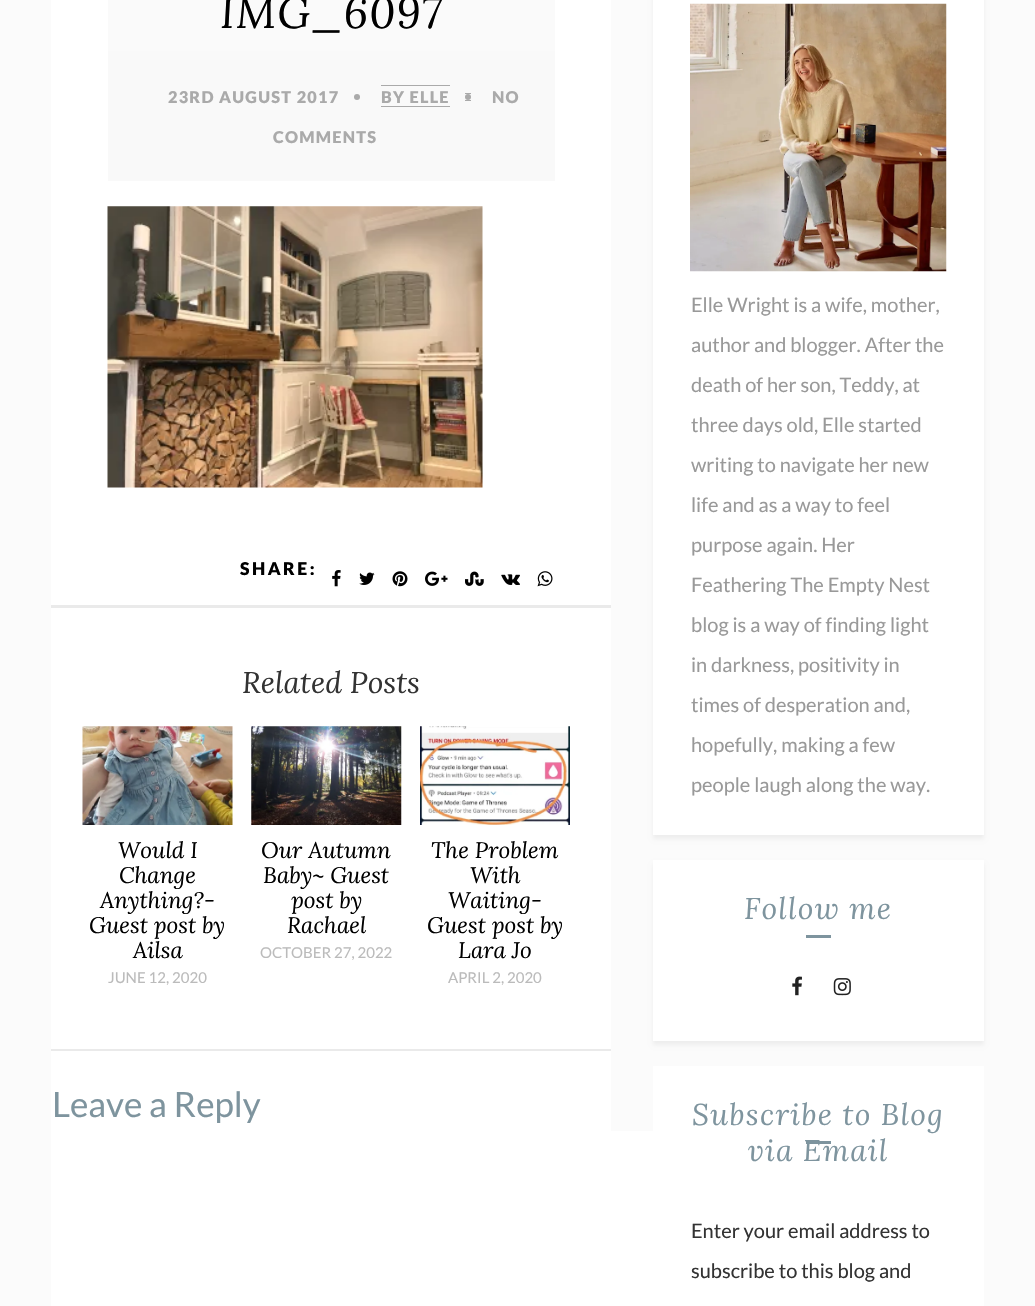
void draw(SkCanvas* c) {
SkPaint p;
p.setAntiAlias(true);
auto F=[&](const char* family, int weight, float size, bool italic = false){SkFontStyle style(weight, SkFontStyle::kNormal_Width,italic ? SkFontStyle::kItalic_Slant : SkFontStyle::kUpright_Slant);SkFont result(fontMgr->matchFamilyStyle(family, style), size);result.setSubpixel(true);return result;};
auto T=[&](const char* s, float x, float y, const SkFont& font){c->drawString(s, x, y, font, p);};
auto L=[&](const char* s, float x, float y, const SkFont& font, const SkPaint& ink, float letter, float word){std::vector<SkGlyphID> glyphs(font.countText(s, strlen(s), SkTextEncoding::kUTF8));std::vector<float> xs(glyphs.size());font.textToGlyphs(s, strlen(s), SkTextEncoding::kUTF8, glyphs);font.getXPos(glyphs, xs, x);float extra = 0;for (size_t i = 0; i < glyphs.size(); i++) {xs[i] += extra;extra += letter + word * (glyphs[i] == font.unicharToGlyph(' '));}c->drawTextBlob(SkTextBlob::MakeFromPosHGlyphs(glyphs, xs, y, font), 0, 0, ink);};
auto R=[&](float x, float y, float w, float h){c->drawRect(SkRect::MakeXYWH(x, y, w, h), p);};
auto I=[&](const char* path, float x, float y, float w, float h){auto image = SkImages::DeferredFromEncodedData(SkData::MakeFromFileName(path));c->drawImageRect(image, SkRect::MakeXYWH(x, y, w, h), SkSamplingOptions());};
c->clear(0xfffbfbfb);
p.setColor(0xffffffff);
R(51,0,560,605);
p.setColor(0xfffafafa);
R(108,0,447,51);
auto f1 = F("Lora",400,43.75,true);
p.setColor(0xff000000);
L("IMG_6097",220,28,f1,p,1.25,0);
p.setColor(0xfff9f9f9);
R(108,51,447,130);
auto f2 = F("Lato",900,16.25);
p.setColor(0xffaaaaaa);
L("23RD AUGUST 2017",168,103,f2,p,1.25,0);
c->drawCircle(357,97,3,p);
R(381,85,69,1);
R(381,106,69,1);
R(465,93,6,1);
R(465,100,6,1);
L("BY ELLE",381,103,f2,p,1.25,0);
c->drawCircle(468,97,3,p);
L("NO",492,103,f2,p,1.25,0);
L("COMMENTS",273,143,f2,p,1.25,0);
I("1.png",107,206,376,282);
auto f3 = F("Lato",900,17.5);
p.setColor(0xff000000);
L("SHARE:",240,575,f3,p,2.5,0);
I("2.png",332,570,9,17);
I("3.png",359,572,16,13);
I("4.png",392,571,16,16);
I("5.png",425,571,23,15);
I("6.png",465,571,19,15);
I("7.png",501,574,19,11);
I("8.png",537,571,16,16);
p.setColor(0xffffffff);
R(51,608,560,441);
p.setColor(0xffeaeaea);
R(51,605,560,3);
R(51,1049,560,2);
auto f4 = F("Lora",400,30,true);
p.setColor(0xff333333);
T("Related Posts",242,693,f4);
I("9.png",82,726,151,99);
auto f5 = F("Lora",400,22.5,true);
p.setColor(0xff000000);
T("Would I",118,858,f5);
T("Change",119,883,f5);
T("Anything?-",100,908,f5);
T("Guest post by",89,933,f5);
T("Ailsa",133,958,f5);
auto f6 = F("Lato",400,15);
p.setColor(0xffbbbbbb);
T("JUNE 12, 2020",108,983,f6);
I("10.png",251,726,151,99);
p.setColor(0xff000000);
T("Our Autumn",261,858,f5);
T("Baby~ Guest",263,883,f5);
T("post by",291,908,f5);
T("Rachael",287,933,f5);
p.setColor(0xffbbbbbb);
T("OCTOBER 27, 2022",260,958,f6);
I("11.png",420,726,150,99);
p.setColor(0xff000000);
T("The Problem",431,858,f5);
T("With",470,883,f5);
T("Waiting-",448,908,f5);
T("Guest post by",427,933,f5);
T("Lara Jo",458,958,f5);
p.setColor(0xffbbbbbb);
T("APRIL 2, 2020",448,983,f6);
p.setColor(0xffffffff);
R(51,1051,560,255);
auto f7 = F("Lato",400,35);
p.setColor(0xff7e949e);
T("Leave a Reply",52,1117,f7);
p.setColor(0xffffffff);
R(611,1131,42,175);
p.setColor(0x0d000000);
p.setMaskFilter(SkMaskFilter::MakeBlur(kNormal_SkBlurStyle, 2));
c->drawRect(SkRect::MakeXYWH(653,-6,331,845),p);
p.setMaskFilter(nullptr);
p.setColor(0xffffffff);
R(653,0,331,835);
I("12.png",690,3,257,269);
auto f8 = F("Lato",400,20);
p.setColor(0xff999999);
T("Elle Wright is a wife, mother,",691,312,f8);
T("author and blogger. After the",691,352,f8);
T("death of her son, Teddy, at",691,392,f8);
T("three days old, Elle started",691,432,f8);
T("writing to navigate her new",691,472,f8);
T("life and as a way to feel",691,512,f8);
T("purpose again. Her",691,552,f8);
T("Feathering The Empty Nest",691,592,f8);
T("blog is a way of finding light",691,632,f8);
T("in darkness, positivity in",691,672,f8);
T("times of desperation and,",691,712,f8);
T("hopefully, making a few",691,752,f8);
T("people laugh along the way.",691,792,f8);
p.setColor(0x0d000000);
p.setMaskFilter(SkMaskFilter::MakeBlur(kNormal_SkBlurStyle, 2));
c->drawRect(SkRect::MakeXYWH(653,864,331,181),p);
p.setMaskFilter(nullptr);
p.setColor(0xffffffff);
R(653,860,331,181);
p.setColor(0xff7e949e);
L("Follow me",744,919,f4,p,1.25,0);
R(806,935,25,3);
I("13.png",792,976,10,20);
I("14.png",833,978,18,18);
p.setColor(0xffffffff);
R(653,1066,331,240);
p.setColor(0xff7e949e);
L("Subscribe to Blog",692,1125,f4,p,1.25,0);
L("via Email",748,1161,f4,p,1.25,0);
R(806,1141,25,3);
p.setColor(0xff333333);
T("Enter your email address to",691,1238,f8);
T("subscribe to this blog and",691,1278,f8);
}
